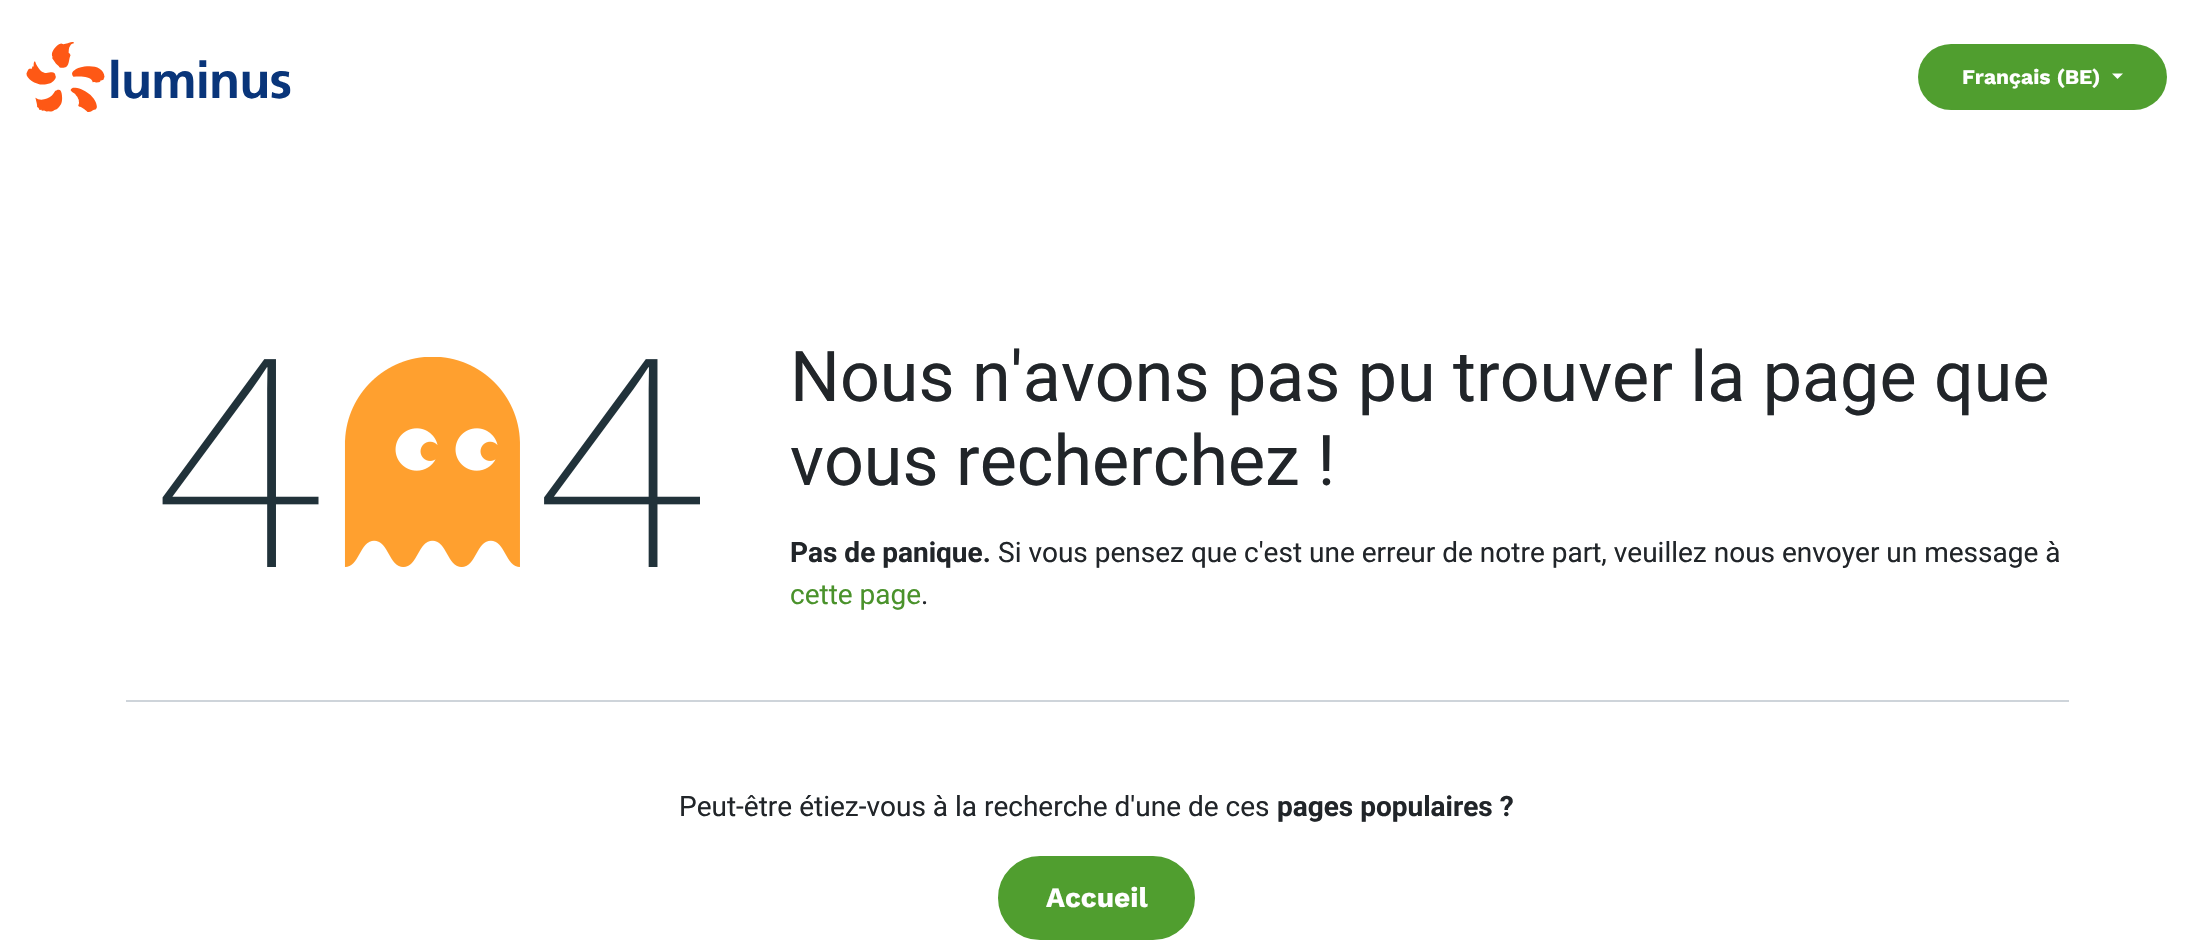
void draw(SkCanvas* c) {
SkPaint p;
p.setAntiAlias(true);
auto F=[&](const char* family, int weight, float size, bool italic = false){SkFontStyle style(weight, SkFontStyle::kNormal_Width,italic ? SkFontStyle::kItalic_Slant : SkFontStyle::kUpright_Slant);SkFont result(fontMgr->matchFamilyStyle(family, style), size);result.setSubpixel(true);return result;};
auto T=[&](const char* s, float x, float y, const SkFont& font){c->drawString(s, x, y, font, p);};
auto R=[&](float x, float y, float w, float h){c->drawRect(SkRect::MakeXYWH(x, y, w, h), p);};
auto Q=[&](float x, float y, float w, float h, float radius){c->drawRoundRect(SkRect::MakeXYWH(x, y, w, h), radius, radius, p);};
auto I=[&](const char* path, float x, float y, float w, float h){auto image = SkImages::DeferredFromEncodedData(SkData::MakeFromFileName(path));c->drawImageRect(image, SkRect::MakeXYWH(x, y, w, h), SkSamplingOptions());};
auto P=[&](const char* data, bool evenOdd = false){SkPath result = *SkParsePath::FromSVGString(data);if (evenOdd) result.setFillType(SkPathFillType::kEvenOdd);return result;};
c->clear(0xffffffff);
I("1.png",26,42,265,70);
p.setColor(0xff509e2f);
Q(1918,44,249,66,33);
auto f1 = F("Work Sans",700,21);
p.setColor(0xffffffff);
T("Français (BE)",1962,84,f1);
c->drawPath(P("M2112 73.5h11l-5.5 5.5z"),p);
I("2.png",162,357,538,210);
auto f2 = F("Roboto",400,70);
p.setColor(0xff212529);
T("Nous n'avons pas pu trouver la page que",790,401,f2);
T("vous recherchez !",790,485,f2);
auto f3 = F("Roboto",700,28);
T("Pas de panique.",790,562,f3);
auto f4 = F("Roboto",400,28);
T("Si vous pensez que c'est une erreur de notre part, veuillez nous envoyer un message à",998,562,f4);
p.setColor(0xff4a922b);
T("cette page",790,604,f4);
p.setColor(0xff212529);
T(".",921,604,f4);
p.setColor(0xffced4da);
R(126,700,1943,2);
p.setColor(0xff212529);
T("Peut-être étiez-vous à la recherche d'une de ces",679,816,f4);
T("pages populaires ?",1277,816,f3);
p.setColor(0xff509e2f);
c->drawRoundRect(SkRect::MakeXYWH(1000,858,193,80),40,40,p);
p.setStroke(true);
p.setStrokeWidth(4);
c->drawRoundRect(SkRect::MakeXYWH(1000,858,193,80),40,40,p);
auto f5 = F("Work Sans",700,28);
p.setStroke(false);
p.setColor(0xffffffff);
T("Accueil",1046,907,f5);
}
